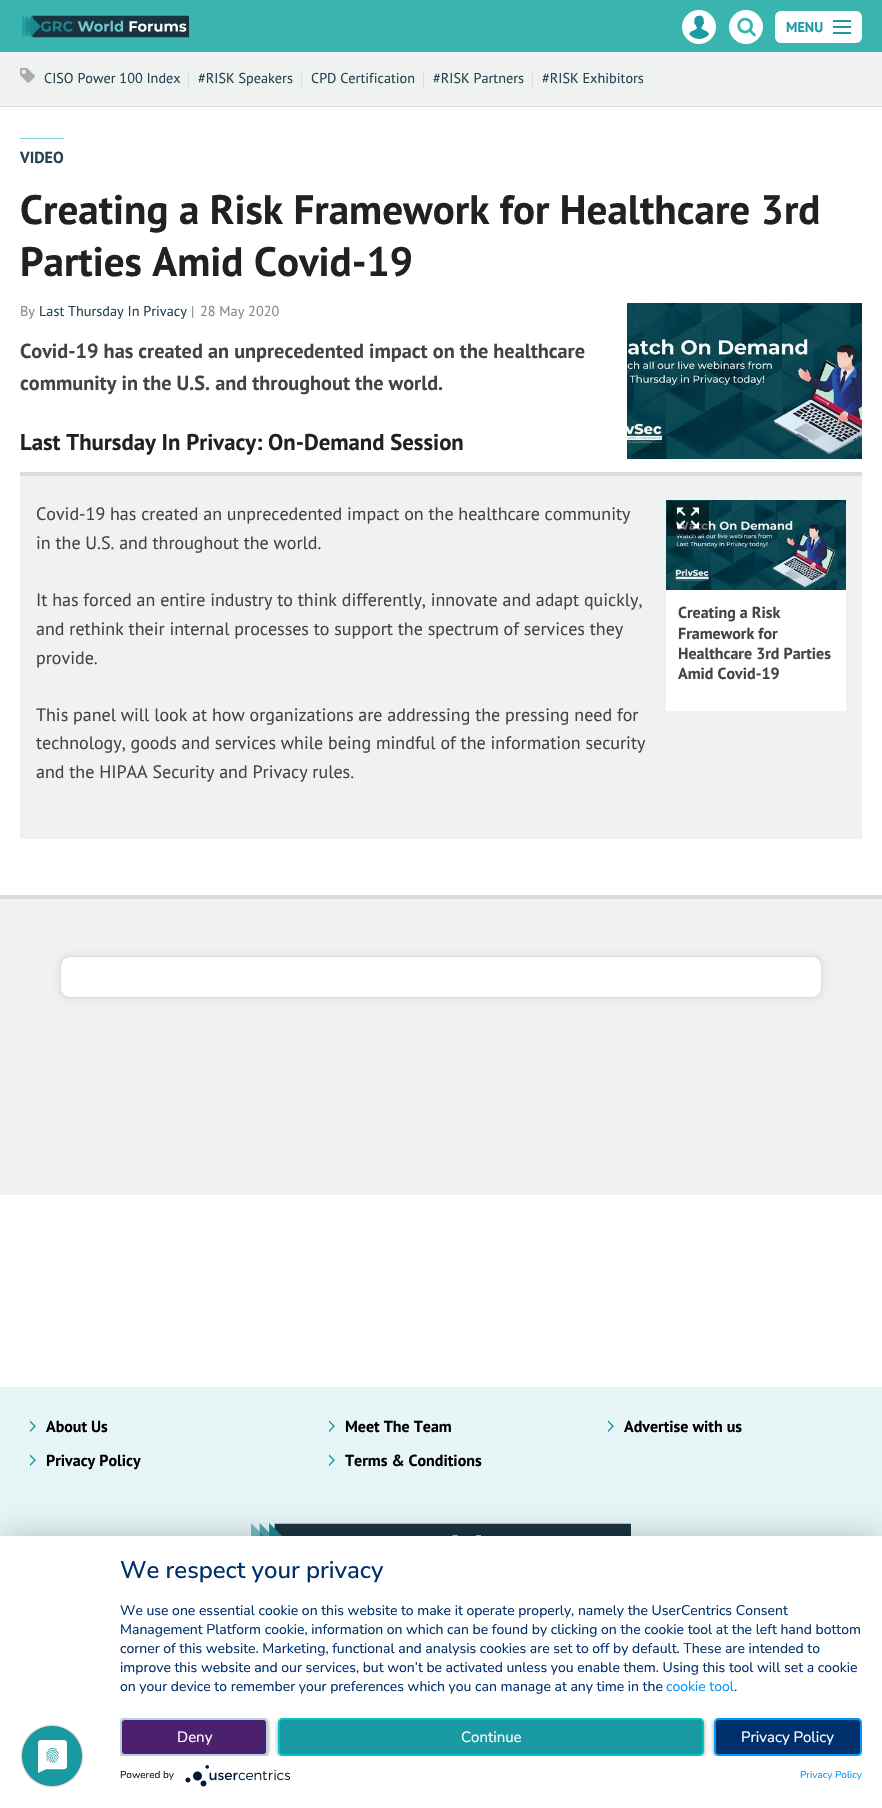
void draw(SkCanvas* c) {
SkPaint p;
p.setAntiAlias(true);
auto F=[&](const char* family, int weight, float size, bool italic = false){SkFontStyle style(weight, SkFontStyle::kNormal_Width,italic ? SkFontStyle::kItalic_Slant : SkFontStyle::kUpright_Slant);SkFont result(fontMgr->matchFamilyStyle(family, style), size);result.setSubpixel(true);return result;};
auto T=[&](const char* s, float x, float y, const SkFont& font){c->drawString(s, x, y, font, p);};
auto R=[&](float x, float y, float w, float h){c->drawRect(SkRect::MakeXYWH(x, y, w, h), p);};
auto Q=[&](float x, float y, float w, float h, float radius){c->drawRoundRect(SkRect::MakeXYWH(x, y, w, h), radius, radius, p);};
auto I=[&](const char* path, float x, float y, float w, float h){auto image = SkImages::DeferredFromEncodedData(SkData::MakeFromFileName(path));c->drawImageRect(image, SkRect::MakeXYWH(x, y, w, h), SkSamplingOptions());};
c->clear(0xffffffff);
p.setColor(0xff39b4ae);
R(0,0,882,52);
I("1.png",22,15,168,23);
I("2.png",682,10,34,34);
I("3.png",729,10,34,34);
p.setColor(0xffffffff);
Q(775,11,87,32,6);
auto f1 = F("PT Sans",700,14.25);
p.setColor(0xff1b9aa1);
T("MENU",786,32,f1);
I("4.png",833,20,18,14);
p.setColor(0xfff0f2f2);
R(0,52,882,54);
p.setColor(0xffdcdcdc);
R(0,106,882,1);
I("5.png",20,68,15,15);
auto f2 = F("PT Sans",400,14.25);
p.setColor(0xff24434f);
T("CISO Power 100 Index",44,83,f2);
p.setColor(0xffdcdcdc);
R(188,71,1,16);
p.setColor(0xff24434f);
T("#RISK Speakers",198,83,f2);
p.setColor(0xffdcdcdc);
R(301,71,1,16);
p.setColor(0xff24434f);
T("CPD Certification",311,83,f2);
p.setColor(0xffdcdcdc);
R(423,71,1,16);
p.setColor(0xff24434f);
T("#RISK Partners",433,83,f2);
p.setColor(0xffdcdcdc);
R(532,71,1,16);
p.setColor(0xff24434f);
T("#RISK Exhibitors",542,83,f2);
p.setColor(0xff83d0d4);
R(20,138,44,1);
auto f3 = F("PT Sans",700,16);
p.setColor(0xff24434f);
T("VIDEO",20,163,f3);
auto f4 = F("PT Sans",700,41.1);
p.setColor(0xff212121);
T("Creating a Risk Framework for Healthcare 3rd",20,224,f4);
T("Parties Amid Covid-19",20,276,f4);
p.setColor(0xff888888);
T("By",20,316,f2);
p.setColor(0xff24434f);
T("Last Thursday In Privacy",39,316,f2);
p.setColor(0xff888888);
T("|",191,316,f2);
T("28 May 2020",200,316,f2);
I("6.png",627,303,235,156);
auto f5 = F("PT Sans",700,20.25);
p.setColor(0xff444444);
T("Covid-19 has created an unprecedented impact on the healthcare",20,358,f5);
T("community in the U.S. and throughout the world.",20,390,f5);
auto f6 = F("PT Sans",700,22.75);
p.setColor(0xff212121);
T("Last Thursday In Privacy: On-Demand Session",20,450,f6);
p.setColor(0xfff0f2f2);
R(20,476,842,363);
p.setColor(0xffdcdcdc);
R(20,472,842,4);
auto f7 = F("PT Sans",400,18);
p.setColor(0xff444444);
T("Covid-19 has created an unprecedented impact on the healthcare community",36,520,f7);
T("in the U.S. and throughout the world.",36,549,f7);
T("It has forced an entire industry to think differently, innovate and adapt quickly,",36,606,f7);
T("and rethink their internal processes to support the spectrum of services they",36,635,f7);
T("provide.",36,664,f7);
I("7.png",666,500,180,90);
I("8.png",667,501,42,35);
p.setColor(0xffffffff);
R(666,590,180,121);
p.setColor(0xff444444);
T("Creating a Risk",678,618,f3);
T("Framework for",678,639,f3);
T("Healthcare 3rd Parties",678,659,f3);
T("Amid Covid-19",678,679,f3);
T("This panel will look at how organizations are addressing the pressing need for",36,721,f7);
T("technology, goods and services while being mindful of the information security",36,749,f7);
T("and the HIPAA Security and Privacy rules.",36,778,f7);
p.setColor(0xfff0f2f2);
R(0,899,882,296);
p.setColor(0xffdcdcdc);
R(0,895,882,4);
p.setMaskFilter(SkMaskFilter::MakeBlur(kNormal_SkBlurStyle, 3.5));
c->drawRoundRect(SkRect::MakeXYWH(59,955,764,44),11,11,p);
p.setMaskFilter(nullptr);
p.setColor(0xffffffff);
c->drawRoundRect(SkRect::MakeXYWH(60.5,956.5,761,41),9.5,9.5,p);
p.setStroke(true);
p.setStrokeWidth(1);
p.setColor(0xffdcdcdc);
c->drawRoundRect(SkRect::MakeXYWH(60.5,956.5,761,41),9.5,9.5,p);
p.setStroke(false);
p.setColor(0xffe6f5f6);
R(0,1387,882,149);
I("9.png",30,1420,6,13);
p.setColor(0xff000000);
T("About Us",46,1432,f3);
I("9.png",329,1420,6,13);
T("Meet The Team",345,1432,f3);
I("9.png",608,1420,6,13);
T("Advertise with us",624,1432,f3);
I("9.png",30,1454,6,13);
T("Privacy Policy",46,1466,f3);
I("9.png",329,1454,6,13);
T("Terms & Conditions",345,1466,f3);
I("10.png",251,1523,380,13);
p.setColor(0x4d000000);
p.setMaskFilter(SkMaskFilter::MakeBlur(kNormal_SkBlurStyle, 18));
c->drawRect(SkRect::MakeXYWH(0,1542,882,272),p);
p.setMaskFilter(nullptr);
p.setColor(0xffffffff);
R(0,1536,882,272);
I("11.png",20,1724,64,64);
auto f8 = F("Nunito Sans",500,24);
p.setColor(0xff00306c);
T("We respect your privacy",120,1578,f8);
auto f9 = F("Nunito Sans",400,14);
T("We use one essential cookie on this website to make it operate properly, namely the UserCentrics Consent",120,1615,f9);
T("Management Platform cookie, information on which can be found by clicking on the cookie tool at the left hand bottom",120,1634,f9);
T("corner of this website. Marketing, functional and analysis cookies are set to off by default. These are intended to",120,1653,f9);
T("improve this website and our services, but won’t be activated unless you enable them. Using this tool will set a cookie",120,1672,f9);
T("on your device to remember your preferences which you can manage at any time in the",120,1691,f9);
p.setColor(0xff0096ff);
T("cookie tool",666,1691,f9);
p.setColor(0xff00306c);
T(".",734,1691,f9);
c->save();
c->clipRect(SkRect::MakeXYWH(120,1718,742,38));
p.setColor(0x66000000);
p.setMaskFilter(SkMaskFilter::MakeBlur(kNormal_SkBlurStyle, 2));
c->drawRoundRect(SkRect::MakeXYWH(120,1719,148,38),5,5,p);
p.setMaskFilter(nullptr);
c->restore();
p.setColor(0xff4b206f);
c->drawRoundRect(SkRect::MakeXYWH(121,1719,146,36),4,4,p);
p.setStroke(true);
p.setStrokeWidth(2);
p.setColor(0xffb8cee1);
c->drawRoundRect(SkRect::MakeXYWH(121,1719,146,36),4,4,p);
auto f10 = F("Nunito Sans",400,15);
p.setStroke(false);
p.setColor(0xffffffff);
T("Deny",177,1742,f10);
c->save();
c->clipRect(SkRect::MakeXYWH(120,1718,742,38));
p.setColor(0x66000000);
p.setMaskFilter(SkMaskFilter::MakeBlur(kNormal_SkBlurStyle, 2));
c->drawRoundRect(SkRect::MakeXYWH(278,1719,426,38),5,5,p);
p.setMaskFilter(nullptr);
c->restore();
p.setColor(0xff199aa2);
c->drawRoundRect(SkRect::MakeXYWH(279,1719,424,36),4,4,p);
p.setStroke(true);
p.setColor(0xff00c3c3);
c->drawRoundRect(SkRect::MakeXYWH(279,1719,424,36),4,4,p);
p.setStroke(false);
p.setColor(0xffffffff);
T("Continue",461,1742,f10);
c->save();
c->clipRect(SkRect::MakeXYWH(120,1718,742,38));
p.setColor(0x66000000);
p.setMaskFilter(SkMaskFilter::MakeBlur(kNormal_SkBlurStyle, 2));
c->drawRoundRect(SkRect::MakeXYWH(714,1719,148,38),5,5,p);
p.setMaskFilter(nullptr);
c->restore();
p.setColor(0xff00306c);
c->drawRoundRect(SkRect::MakeXYWH(715,1719,146,36),4,4,p);
p.setStroke(true);
p.setColor(0xff0096ff);
c->drawRoundRect(SkRect::MakeXYWH(715,1719,146,36),4,4,p);
p.setStroke(false);
p.setColor(0xffffffff);
T("Privacy Policy",741,1742,f10);
auto f11 = F("Nunito Sans",400,10);
p.setColor(0xff021836);
T("Powered by",120,1778,f11);
I("12.png",185,1765,106,22);
p.setColor(0xff0096ff);
T("Privacy Policy",800,1778,f11);
}
